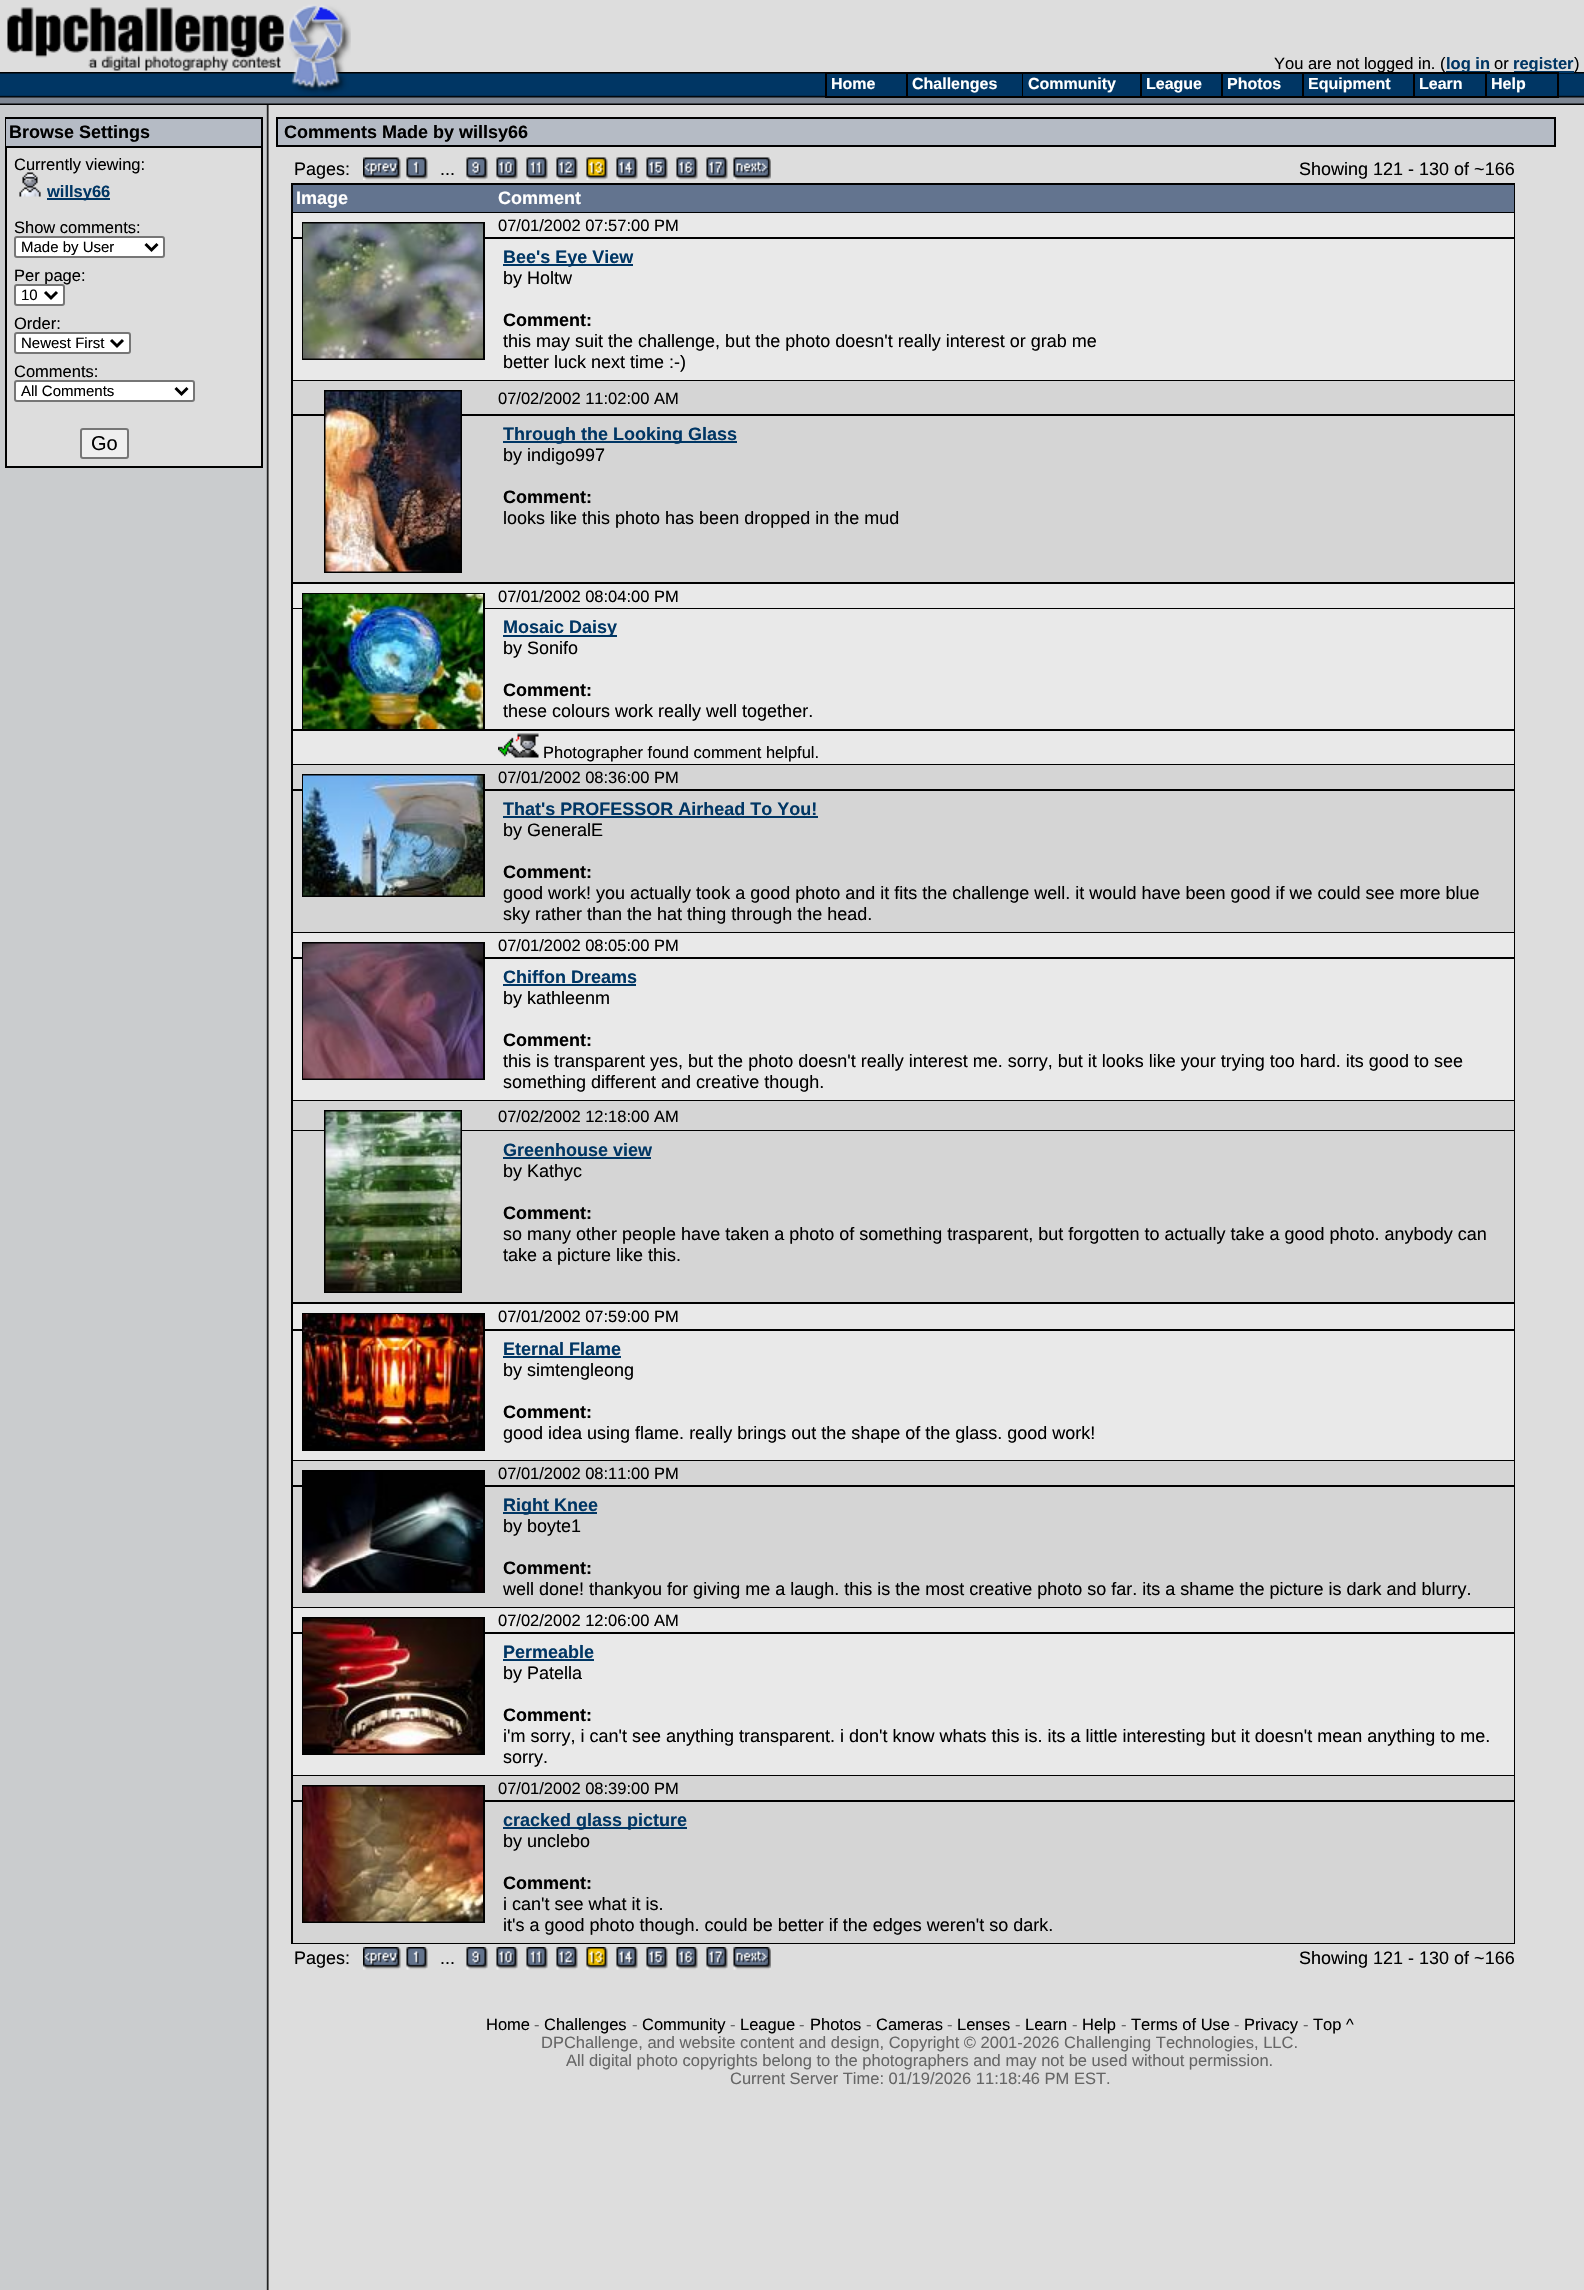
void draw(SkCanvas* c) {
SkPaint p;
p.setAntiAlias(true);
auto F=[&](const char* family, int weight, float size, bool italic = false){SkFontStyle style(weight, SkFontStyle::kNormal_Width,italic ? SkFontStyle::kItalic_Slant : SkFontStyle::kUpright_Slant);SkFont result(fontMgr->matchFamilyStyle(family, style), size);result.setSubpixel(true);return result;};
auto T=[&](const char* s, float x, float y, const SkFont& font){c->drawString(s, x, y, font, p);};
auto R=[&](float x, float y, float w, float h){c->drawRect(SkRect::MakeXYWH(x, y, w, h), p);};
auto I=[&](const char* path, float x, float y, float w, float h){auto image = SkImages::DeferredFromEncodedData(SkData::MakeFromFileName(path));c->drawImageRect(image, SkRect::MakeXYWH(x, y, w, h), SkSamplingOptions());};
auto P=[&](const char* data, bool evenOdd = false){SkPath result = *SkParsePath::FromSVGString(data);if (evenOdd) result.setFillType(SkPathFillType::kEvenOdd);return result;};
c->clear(0xffdddddd);
I("1.png",0,105,269,2185);
I("2.png",0,0,351,72);
I("4.png",351,72,1233,33);
auto f1 = F("Liberation Sans",400,16.5);
p.setColor(0xff000000);
T("You are not logged in. (",1274,69,f1);
p.setColor(0xff003664);
R(1446,71,44,1);
auto f2 = F("Liberation Sans",700,16.5);
T("log in",1446,69,f2);
p.setColor(0xff000000);
T("or",1494,69,f1);
p.setColor(0xff003664);
R(1514,71,60,2);
T("register",1513,69,f2);
p.setColor(0xff000000);
T(")",1574,69,f1);
I("3.png",0,72,351,33);
R(825,72,734,26);
p.setColor(0xff003664);
R(827,74,79,22);
auto f3 = F("Liberation Sans",700,16);
p.setColor(0xffffffff);
T("Home",831,89,f3);
p.setColor(0xff003664);
R(908,74,114,22);
p.setColor(0xffffffff);
T("Challenges",912,89,f3);
p.setColor(0xff003664);
R(1023,74,117,22);
p.setColor(0xffffffff);
T("Community",1028,89,f3);
p.setColor(0xff003664);
R(1142,74,79,22);
p.setColor(0xffffffff);
T("League",1146,89,f3);
p.setColor(0xff003664);
R(1223,74,79,22);
p.setColor(0xffffffff);
T("Photos",1227,89,f3);
p.setColor(0xff003664);
R(1304,74,109,22);
p.setColor(0xffffffff);
T("Equipment",1308,89,f3);
p.setColor(0xff003664);
R(1415,74,70,22);
p.setColor(0xffffffff);
T("Learn",1419,89,f3);
p.setColor(0xff003664);
R(1487,74,70,22);
p.setColor(0xffffffff);
T("Help",1491,89,f3);
p.setColor(0xffdddddd);
R(7,148,254,318);
p.setStroke(true);
p.setStrokeWidth(2);
p.setColor(0xff000000);
c->drawRect(SkRect::MakeXYWH(6,118,256,349),p);
p.setStroke(false);
p.setColor(0xffb5bbc5);
R(6,119,255,27);
p.setColor(0xff000000);
R(6,146,255,2);
auto f4 = F("Liberation Sans",700,18);
T("Browse Settings",9,138,f4);
T("Currently viewing:",14,170,f1);
I("5.png",19,172,22,25);
p.setColor(0xff003664);
R(47,198,63,2);
T("willsy66",47,197,f2);
p.setColor(0xff000000);
T("Show comments:",14,233,f1);
p.setColor(0xffffffff);
c->drawRoundRect(SkRect::MakeXYWH(15,237,149,20),2,2,p);
p.setStroke(true);
p.setColor(0xff767676);
c->drawRoundRect(SkRect::MakeXYWH(15,237,149,20),2,2,p);
p.setStrokeWidth(3);
p.setColor(0xff000000);
c->drawPath(P("M145.5 244l6 6l6-6"),p);
auto f5 = F("Liberation Sans",400,15);
p.setStroke(false);
T("Made by User",21,252,f5);
T("Per page:",14,281,f1);
p.setColor(0xffffffff);
c->drawRoundRect(SkRect::MakeXYWH(15,285,49,20),2,2,p);
p.setStroke(true);
p.setStrokeWidth(2);
p.setColor(0xff767676);
c->drawRoundRect(SkRect::MakeXYWH(15,285,49,20),2,2,p);
p.setStrokeWidth(3);
p.setColor(0xff000000);
c->drawPath(P("M45 292l6 6l6-6"),p);
p.setStroke(false);
T("10",21,300,f5);
T("Order:",14,329,f1);
p.setColor(0xffffffff);
c->drawRoundRect(SkRect::MakeXYWH(15,333,115,20),2,2,p);
p.setStroke(true);
p.setStrokeWidth(2);
p.setColor(0xff767676);
c->drawRoundRect(SkRect::MakeXYWH(15,333,115,20),2,2,p);
p.setStrokeWidth(3);
p.setColor(0xff000000);
c->drawPath(P("M111 340l6 6l6-6"),p);
p.setStroke(false);
T("Newest First",21,348,f5);
T("Comments:",14,377,f1);
p.setColor(0xffffffff);
c->drawRoundRect(SkRect::MakeXYWH(15,381,179,20),2,2,p);
p.setStroke(true);
p.setStrokeWidth(2);
p.setColor(0xff767676);
c->drawRoundRect(SkRect::MakeXYWH(15,381,179,20),2,2,p);
p.setStrokeWidth(3);
p.setColor(0xff000000);
c->drawPath(P("M175.5 388l6 6l6-6"),p);
p.setStroke(false);
T("All Comments",21,396,f5);
p.setColor(0xffefefef);
c->drawRoundRect(SkRect::MakeXYWH(81,429,47,29),2,2,p);
p.setStroke(true);
p.setStrokeWidth(2);
p.setColor(0xff767676);
c->drawRoundRect(SkRect::MakeXYWH(81,429,47,29),2,2,p);
auto f6 = F("Liberation Sans",400,20);
p.setStroke(false);
p.setColor(0xff000000);
T("Go",91,450,f6);
p.setColor(0xffb5bbc5);
c->drawRect(SkRect::MakeXYWH(277,118,1278,28),p);
p.setStroke(true);
p.setColor(0xff000000);
c->drawRect(SkRect::MakeXYWH(277,118,1278,28),p);
p.setStroke(false);
T("Comments Made by willsy66",284,138,f4);
auto f7 = F("Liberation Sans",400,18);
T("Pages:",294,175,f7);
I("6.png",363,157,38,23);
I("7.png",406,157,22,23);
T("...",440,175,f7);
I("8.png",466,157,22,23);
I("9.png",496,157,22,23);
I("10.png",526,157,22,23);
I("11.png",556,157,22,23);
I("12.png",586,157,22,23);
I("13.png",616,157,22,23);
I("14.png",646,157,22,23);
I("15.png",676,157,22,23);
I("16.png",706,157,22,23);
I("17.png",733,157,38,23);
T("Showing 121 - 130 of ~166",1299,175,f7);
R(291,183,1224,1761);
p.setColor(0xff63748f);
R(293,185,1221,27);
p.setColor(0xffffffff);
T("Image",296,204,f4);
T("Comment",498,204,f4);
p.setColor(0xffe9e9e9);
R(293,213,1221,24);
R(293,239,1221,141);
p.setStroke(true);
p.setColor(0xff000000);
c->drawRect(SkRect::MakeXYWH(303,223,181,136),p);
I("18.png",303,223,180,136);
p.setStroke(false);
T("07/01/2002 07:57:00 PM",498,231,f1);
p.setColor(0xff003664);
R(503,264,130,2);
T("Bee's Eye View",503,263,f4);
p.setColor(0xff000000);
T("by Holtw",503,284,f7);
T("Comment:",503,326,f4);
T("this may suit the challenge, but the photo doesn't really interest or grab me",503,347,f7);
T("better luck next time :-)",503,368,f7);
p.setColor(0xffd5d5d5);
R(293,381,1221,33);
R(293,416,1221,166);
p.setStroke(true);
p.setColor(0xff000000);
c->drawRect(SkRect::MakeXYWH(325,391,136,181),p);
I("19.png",325,391,136,181);
p.setStroke(false);
T("07/02/2002 11:02:00 AM",498,404,f1);
p.setColor(0xff003664);
R(503,441,234,2);
T("Through the Looking Glass",503,440,f4);
p.setColor(0xff000000);
T("by indigo997",503,461,f7);
T("Comment:",503,503,f4);
T("looks like this photo has been dropped in the mud",503,524,f7);
p.setColor(0xffe9e9e9);
R(293,584,1221,24);
R(293,609,1221,120);
p.setStroke(true);
p.setColor(0xff000000);
c->drawRect(SkRect::MakeXYWH(303,594,181,136),p);
I("20.png",303,594,180,135);
p.setStroke(false);
T("07/01/2002 08:04:00 PM",498,602,f1);
p.setColor(0xff003664);
R(503,635,114,2);
T("Mosaic Daisy",503,633,f4);
p.setColor(0xff000000);
T("by Sonifo",503,654,f7);
T("Comment:",503,696,f4);
T("these colours work really well together.",503,717,f7);
p.setColor(0xffe9e9e9);
R(293,731,1221,33);
I("21.png",498,733,41,25);
p.setColor(0xff000000);
T("Photographer found comment helpful.",543,758,f1);
p.setColor(0xffd5d5d5);
R(293,765,1221,24);
R(293,791,1221,141);
p.setStroke(true);
p.setColor(0xff000000);
c->drawRect(SkRect::MakeXYWH(303,775,181,121),p);
I("22.png",303,775,180,121);
p.setStroke(false);
T("07/01/2002 08:36:00 PM",498,783,f1);
p.setColor(0xff003664);
T("That's PROFESSOR Airhead To You!",503,815,f4);
R(503,816,315,2);
p.setColor(0xff000000);
T("by GeneralE",503,836,f7);
T("Comment:",503,878,f4);
T("good work! you actually took a good photo and it fits the challenge well. it would have been good if we could see more blue",503,899,f7);
T("sky rather than the hat thing through the head.",503,920,f7);
p.setColor(0xffe9e9e9);
R(293,933,1221,24);
R(293,959,1221,141);
p.setStroke(true);
p.setColor(0xff000000);
c->drawRect(SkRect::MakeXYWH(303,943,181,136),p);
I("23.png",303,943,180,136);
p.setStroke(false);
T("07/01/2002 08:05:00 PM",498,951,f1);
p.setColor(0xff003664);
T("Chiffon Dreams",503,983,f4);
R(503,984,133,2);
p.setColor(0xff000000);
T("by kathleenm",503,1004,f7);
T("Comment:",503,1046,f4);
T("this is transparent yes, but the photo doesn't really interest me. sorry, but it looks like your trying too hard. its good to see",503,1067,f7);
T("something different and creative though.",503,1088,f7);
p.setColor(0xffd5d5d5);
R(293,1101,1221,29);
R(293,1131,1221,171);
p.setStroke(true);
p.setColor(0xff000000);
c->drawRect(SkRect::MakeXYWH(325,1111,136,181),p);
I("24.png",325,1111,136,181);
p.setStroke(false);
T("07/02/2002 12:18:00 AM",498,1122,f1);
p.setColor(0xff003664);
T("Greenhouse view",503,1156,f4);
R(503,1157,148,2);
p.setColor(0xff000000);
T("by Kathyc",503,1177,f7);
T("Comment:",503,1219,f4);
T("so many other people have taken a photo of something trasparent, but forgotten to actually take a good photo. anybody can",503,1240,f7);
T("take a picture like this.",503,1261,f7);
p.setColor(0xffe9e9e9);
R(293,1304,1221,25);
R(293,1331,1221,129);
p.setStroke(true);
p.setColor(0xff000000);
c->drawRect(SkRect::MakeXYWH(303,1314,181,136),p);
I("25.png",303,1314,180,135);
p.setStroke(false);
T("07/01/2002 07:59:00 PM",498,1322,f1);
p.setColor(0xff003664);
T("Eternal Flame",503,1355,f4);
R(503,1356,118,2);
p.setColor(0xff000000);
T("by simtengleong",503,1376,f7);
T("Comment:",503,1418,f4);
T("good idea using flame. really brings out the shape of the glass. good work!",503,1439,f7);
p.setColor(0xffd5d5d5);
R(293,1461,1221,24);
R(293,1487,1221,120);
p.setStroke(true);
p.setColor(0xff000000);
c->drawRect(SkRect::MakeXYWH(303,1471,181,121),p);
I("26.png",303,1471,180,121);
p.setStroke(false);
T("07/01/2002 08:11:00 PM",498,1479,f1);
p.setColor(0xff003664);
R(503,1512,94,2);
T("Right Knee",503,1511,f4);
p.setColor(0xff000000);
T("by boyte1",503,1532,f7);
T("Comment:",503,1574,f4);
T("well done! thankyou for giving me a laugh. this is the most creative photo so far. its a shame the picture is dark and blurry.",503,1595,f7);
p.setColor(0xffe9e9e9);
R(293,1608,1221,24);
R(293,1634,1221,141);
p.setStroke(true);
p.setColor(0xff000000);
c->drawRect(SkRect::MakeXYWH(303,1618,181,136),p);
I("27.png",303,1618,180,136);
p.setStroke(false);
T("07/02/2002 12:06:00 AM",498,1626,f1);
p.setColor(0xff003664);
T("Permeable",503,1658,f4);
R(503,1659,91,2);
p.setColor(0xff000000);
T("by Patella",503,1679,f7);
T("Comment:",503,1721,f4);
T("i'm sorry, i can't see anything transparent. i don't know whats this is. its a little interesting but it doesn't mean anything to me.",503,1742,f7);
T("sorry.",503,1763,f7);
p.setColor(0xffd5d5d5);
R(293,1776,1221,24);
R(293,1802,1221,141);
p.setStroke(true);
p.setColor(0xff000000);
c->drawRect(SkRect::MakeXYWH(303,1786,181,136),p);
I("28.png",303,1786,180,136);
p.setStroke(false);
T("07/01/2002 08:39:00 PM",498,1794,f1);
p.setColor(0xff003664);
R(503,1827,184,2);
T("cracked glass picture",503,1826,f4);
p.setColor(0xff000000);
T("by unclebo",503,1847,f7);
T("Comment:",503,1889,f4);
T("i can't see what it is.",503,1910,f7);
T("it's a good photo though. could be better if the edges weren't so dark.",503,1931,f7);
T("Pages:",294,1964,f7);
I("29.png",363,1947,38,23);
I("30.png",406,1947,22,23);
T("...",440,1964,f7);
I("31.png",466,1947,22,23);
I("32.png",496,1947,22,23);
I("33.png",526,1947,22,23);
I("34.png",556,1947,22,23);
I("35.png",586,1947,22,23);
I("36.png",616,1947,22,23);
I("37.png",646,1947,22,23);
I("38.png",676,1947,22,23);
I("39.png",706,1947,22,23);
I("40.png",733,1947,38,23);
T("Showing 121 - 130 of ~166",1299,1964,f7);
T("Home",486,2030,f1);
p.setColor(0xff666666);
T("-",534,2030,f1);
p.setColor(0xff000000);
T("Challenges",544,2030,f1);
p.setColor(0xff666666);
T("-",632,2030,f1);
p.setColor(0xff000000);
T("Community",642,2030,f1);
p.setColor(0xff666666);
T("-",730,2030,f1);
p.setColor(0xff000000);
T("League",740,2030,f1);
p.setColor(0xff666666);
T("-",799,2030,f1);
p.setColor(0xff000000);
T("Photos",810,2030,f1);
p.setColor(0xff666666);
T("-",866,2030,f1);
p.setColor(0xff000000);
T("Cameras",876,2030,f1);
p.setColor(0xff666666);
T("-",947,2030,f1);
p.setColor(0xff000000);
T("Lenses",957,2030,f1);
p.setColor(0xff666666);
T("-",1015,2030,f1);
p.setColor(0xff000000);
T("Learn",1025,2030,f1);
p.setColor(0xff666666);
T("-",1072,2030,f1);
p.setColor(0xff000000);
T("Help",1082,2030,f1);
p.setColor(0xff666666);
T("-",1121,2030,f1);
p.setColor(0xff000000);
T("Terms of Use",1131,2030,f1);
p.setColor(0xff666666);
T("-",1234,2030,f1);
p.setColor(0xff000000);
T("Privacy",1244,2030,f1);
p.setColor(0xff666666);
T("-",1303,2030,f1);
p.setColor(0xff000000);
T("Top ^",1313,2030,f1);
p.setColor(0xff666666);
T("DPChallenge, and website content and design, Copyright © 2001-2026 Challenging Technologies, LLC.",541,2048,f1);
T("All digital photo copyrights belong to the photographers and may not be used without permission.",566,2066,f1);
T("Current Server Time: 01/19/2026 11:18:46 PM EST.",730,2084,f1);
}
